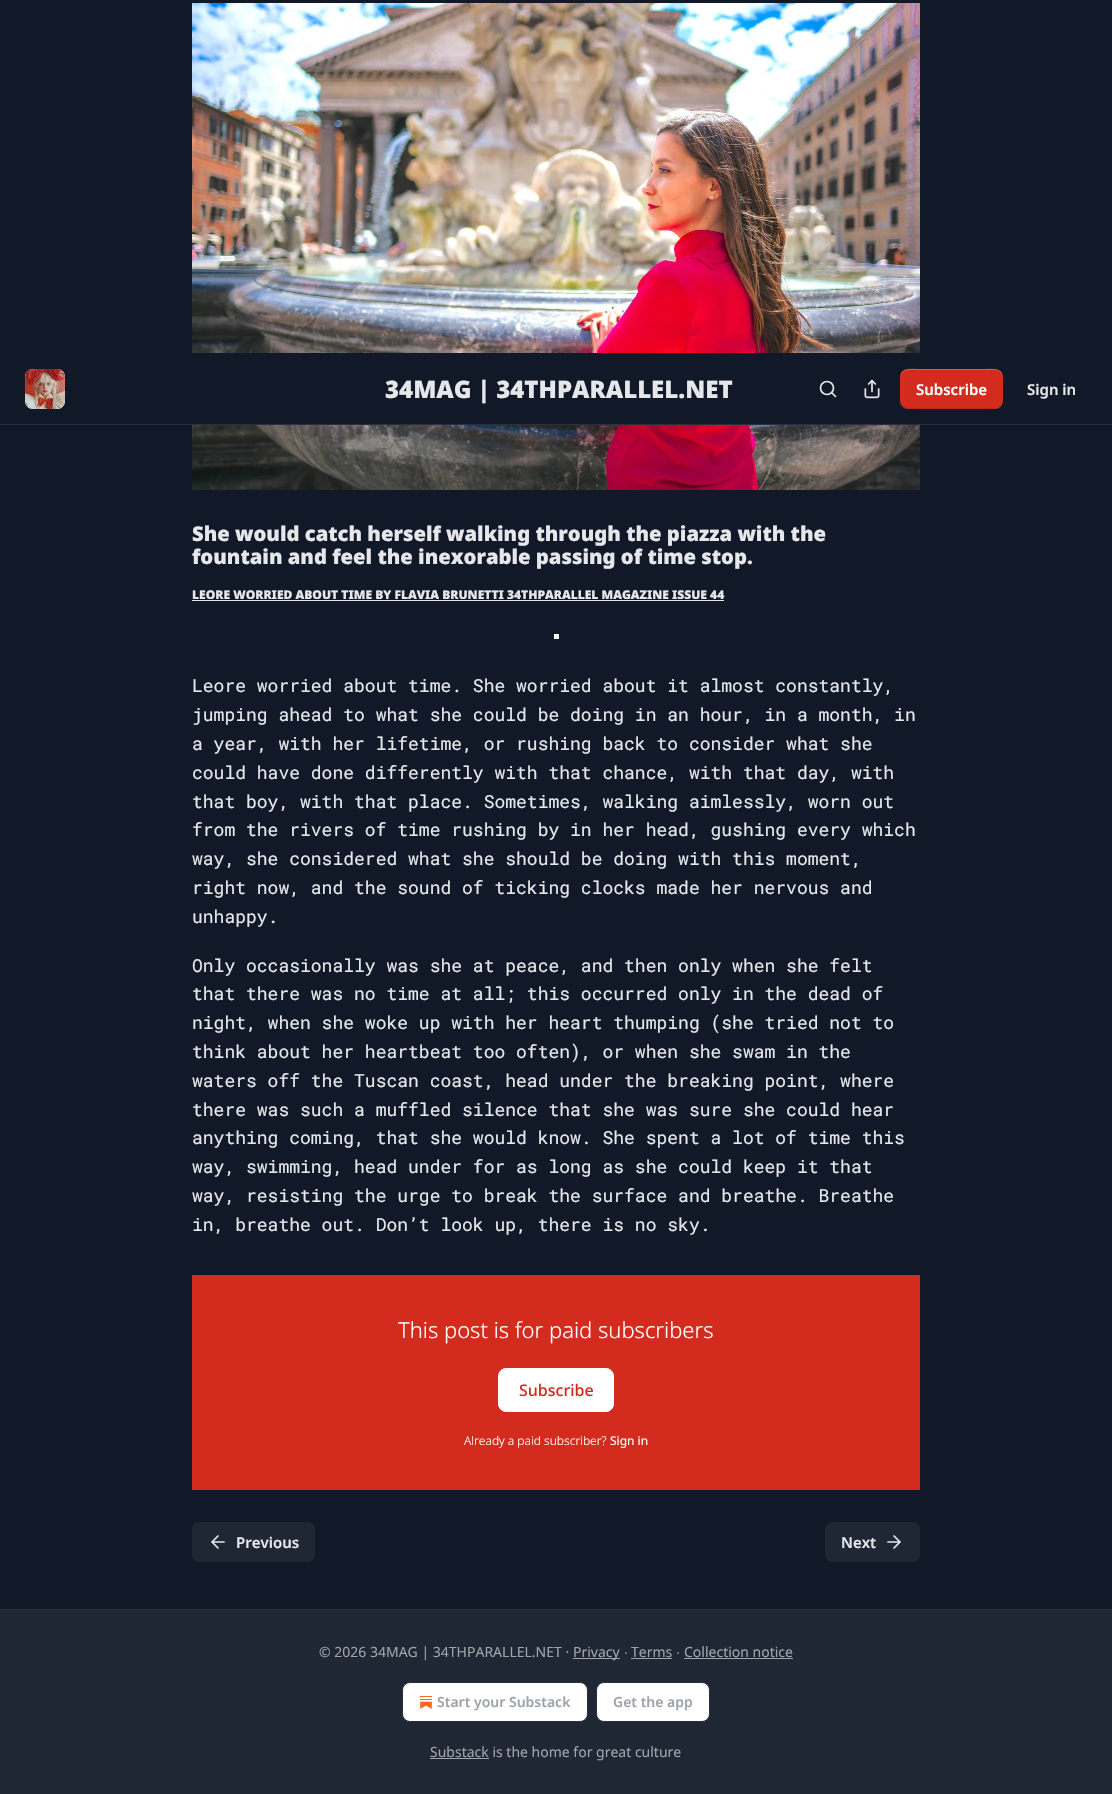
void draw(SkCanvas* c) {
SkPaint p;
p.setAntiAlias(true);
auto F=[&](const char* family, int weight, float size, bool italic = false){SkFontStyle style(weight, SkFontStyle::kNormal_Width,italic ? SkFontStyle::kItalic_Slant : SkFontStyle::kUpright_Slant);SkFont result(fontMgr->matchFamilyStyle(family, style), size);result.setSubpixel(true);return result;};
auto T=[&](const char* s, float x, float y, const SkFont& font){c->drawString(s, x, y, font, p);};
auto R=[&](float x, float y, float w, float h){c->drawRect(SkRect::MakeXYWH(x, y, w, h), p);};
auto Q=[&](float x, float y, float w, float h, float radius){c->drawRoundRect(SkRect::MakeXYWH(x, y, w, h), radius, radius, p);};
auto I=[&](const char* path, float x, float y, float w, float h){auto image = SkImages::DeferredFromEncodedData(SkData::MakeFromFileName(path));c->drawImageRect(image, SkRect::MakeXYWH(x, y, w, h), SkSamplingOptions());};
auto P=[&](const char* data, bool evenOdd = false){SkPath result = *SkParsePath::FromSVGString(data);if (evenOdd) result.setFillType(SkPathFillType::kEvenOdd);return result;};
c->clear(0xff111827);
I("3.png",192,3,728,487);
p.setColor(0xff111827);
R(192,353,728,71);
p.setColor(0xff292f3d);
R(0,424,1112,1);
p.setColor(0xffffffff);
Q(25,369,40,40,8);
I("1.png",25,369,40,40);
auto f1 = F("Noto Sans",900,24);
p.setColor(0xffe6e7eb);
T("34MAG | 34THPARALLEL.NET",385,398,f1);
p.setStroke(true);
p.setStrokeWidth(1.7);
c->drawCircle(827,388,6.5,p);
p.setStrokeCap(SkPaint::kRound_Cap);
p.setStrokeJoin(SkPaint::kRound_Join);
c->drawPath(P("M835.5 396.5l-3.5-3.5"),p);
I("2.png",864,379,16,20);
p.setStroke(false);
p.setColor(0xffd32c1f);
Q(900,369,103,40,8);
p.setColor(0x1a000000);
c->drawPath(P("M900 400c0 12 14 9 22 9h58c9 0 23 3 23-9c0 4-4 8-8 8h-87c-4 0-8-4-8-8z"),p);
p.setColor(0x33ffffff);
c->drawPath(P("M908 370h87c4 0 8 4 8 8c0-12-14-9-23-9h-58c-8 0-22-3-22 9c0-4 4-8 8-8z"),p);
auto f2 = F("Noto Sans",600,15);
p.setColor(0xffffffff);
T("Subscribe",916,395,f2);
p.setColor(0xffe6e7eb);
T("Sign in",1027,395,f2);
auto f3 = F("Noto Sans",900,20.25);
T("She would catch herself walking through the piazza with the",192,541,f3);
T("fountain and feel the inexorable passing of time stop.",192,564,f3);
auto f4 = F("Noto Sans",900,12.05);
T("LEORE WORRIED ABOUT TIME BY FLAVIA BRUNETTI 34THPARALLEL MAGAZINE ISSUE 44",192,599,f4);
R(192,600,532,1);
p.setColor(0xffffffff);
R(554,634,5,5);
auto f5 = F("Roboto Mono",400,18);
p.setColor(0xffe6e7eb);
T("Leore worried about time. She worried about it almost constantly,",192,692,f5);
T("jumping ahead to what she could be doing in an hour, in a month, in",192,721,f5);
T("a year, with her lifetime, or rushing back to consider what she",192,750,f5);
T("could have done differently with that chance, with that day, with",192,779,f5);
T("that boy, with that place. Sometimes, walking aimlessly, worn out",192,808,f5);
T("from the rivers of time rushing by in her head, gushing every which",192,836,f5);
T("way, she considered what she should be doing with this moment,",192,865,f5);
T("right now, and the sound of ticking clocks made her nervous and",192,894,f5);
T("unhappy.",192,923,f5);
T("Only occasionally was she at peace, and then only when she felt",192,972,f5);
T("that there was no time at all; this occurred only in the dead of",192,1000,f5);
T("night, when she woke up with her heart thumping (she tried not to",192,1029,f5);
T("think about her heartbeat too often), or when she swam in the",192,1058,f5);
T("waters off the Tuscan coast, head under the breaking point, where",192,1087,f5);
T("there was such a muffled silence that she was sure she could hear",192,1116,f5);
T("anything coming, that she would know. She spent a lot of time this",192,1144,f5);
T("way, swimming, head under for as long as she could keep it that",192,1173,f5);
T("way, resisting the urge to break the surface and breathe. Breathe",192,1202,f5);
T("in, breathe out. Don’t look up, there is no sky.",192,1231,f5);
p.setColor(0xffd32c1f);
R(192,1275,728,215);
auto f6 = F("Noto Sans",300,22);
p.setColor(0xffffffff);
T("This post is for paid subscribers",398,1338,f6);
c->drawRoundRect(SkRect::MakeXYWH(498.5,1368.5,115,43),7.5,7.5,p);
p.setStroke(true);
p.setStrokeWidth(1);
p.setStrokeCap(SkPaint::kButt_Cap);
p.setStrokeJoin(SkPaint::kMiter_Join);
c->drawRoundRect(SkRect::MakeXYWH(498.5,1368.5,115,43),7.5,7.5,p);
auto f7 = F("Noto Sans",500,16);
p.setStroke(false);
p.setColor(0xffd32c1f);
T("Subscribe",519,1396,f7);
auto f8 = F("Noto Sans",300,12);
p.setColor(0xffffffff);
T("Already a paid subscriber?",464,1445,f8);
auto f9 = F("Noto Sans",400,12);
T("Sign in",610,1445,f9);
p.setColor(0xff1f2634);
Q(192,1522,123,40,8);
p.setStroke(true);
p.setStrokeWidth(1.7);
p.setStrokeCap(SkPaint::kRound_Cap);
p.setStrokeJoin(SkPaint::kRound_Join);
p.setColor(0xffe6e7eb);
c->drawPath(P("M218 1548l-6-6l6-6m6 6h-12"),p);
p.setStroke(false);
T("Previous",236,1548,f2);
p.setColor(0xff1f2634);
Q(825,1522,95,40,8);
p.setColor(0xffe6e7eb);
T("Next",841,1548,f2);
p.setStroke(true);
c->drawPath(P("M888 1542h12m-6-6l6 6l-6 6"),p);
p.setStroke(false);
p.setColor(0xff1f2634);
R(0,1610,1112,184);
p.setColor(0xff292f3d);
R(0,1609,1112,1);
auto f10 = F("Noto Sans",400,14);
p.setColor(0xffa0a3a9);
T("© 2026 34MAG | 34THPARALLEL.NET ·",319,1657,f10);
R(573,1658,47,1);
T("Privacy",573,1657,f10);
auto f11 = F("Liberation Sans",400,14);
T("∙",624,1657,f11);
T("Terms",631,1657,f10);
R(631,1658,41,1);
T("∙",676,1657,f11);
T("Collection notice",684,1657,f10);
R(684,1658,109,1);
p.setColor(0xffffffff);
c->drawRoundRect(SkRect::MakeXYWH(402.5,1682.5,185,39),7.5,7.5,p);
p.setStroke(true);
p.setStrokeWidth(1);
p.setStrokeCap(SkPaint::kButt_Cap);
p.setStrokeJoin(SkPaint::kMiter_Join);
p.setColor(0xff292f3d);
c->drawRoundRect(SkRect::MakeXYWH(402.5,1682.5,185,39),7.5,7.5,p);
I("4.png",420,1696,12,13);
auto f12 = F("Noto Sans",600,14);
p.setStroke(false);
p.setColor(0xffa0a3a9);
T("Start your Substack",437,1707,f12);
p.setColor(0xffffffff);
c->drawRoundRect(SkRect::MakeXYWH(596.5,1682.5,113,39),7.5,7.5,p);
p.setStroke(true);
p.setColor(0xff292f3d);
c->drawRoundRect(SkRect::MakeXYWH(596.5,1682.5,113,39),7.5,7.5,p);
p.setStroke(false);
p.setColor(0xffa0a3a9);
T("Get the app",613,1707,f12);
R(430,1758,59,1);
T("Substack is the home for great culture",430,1757,f10);
}
